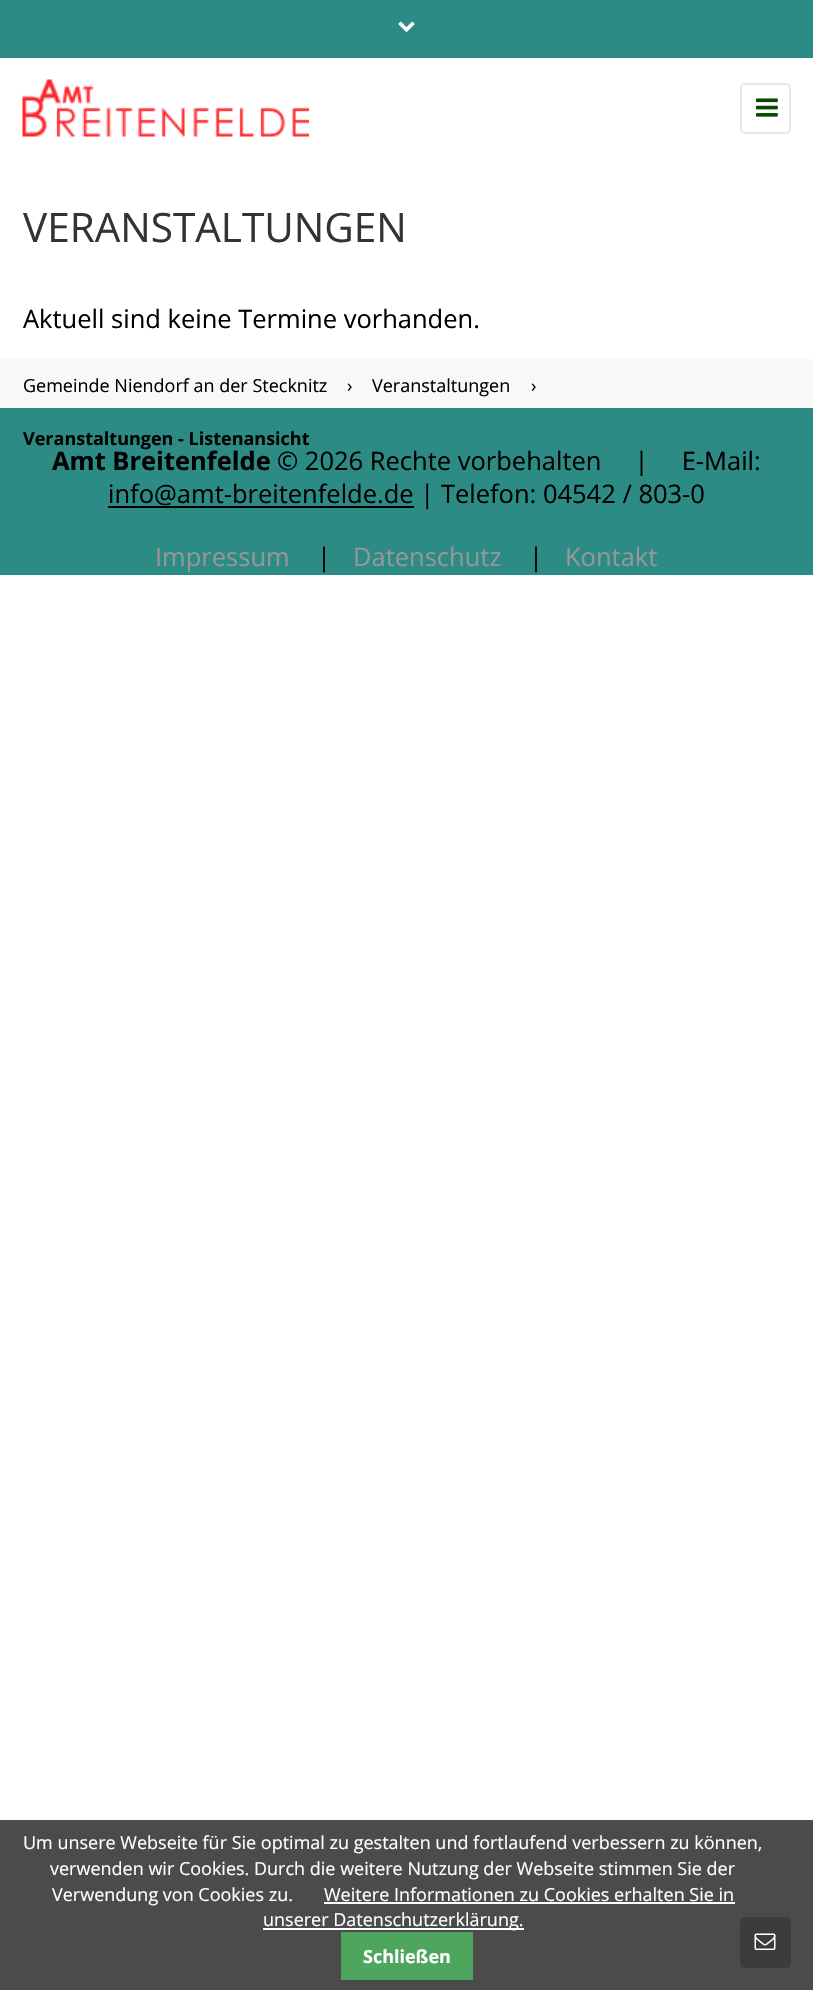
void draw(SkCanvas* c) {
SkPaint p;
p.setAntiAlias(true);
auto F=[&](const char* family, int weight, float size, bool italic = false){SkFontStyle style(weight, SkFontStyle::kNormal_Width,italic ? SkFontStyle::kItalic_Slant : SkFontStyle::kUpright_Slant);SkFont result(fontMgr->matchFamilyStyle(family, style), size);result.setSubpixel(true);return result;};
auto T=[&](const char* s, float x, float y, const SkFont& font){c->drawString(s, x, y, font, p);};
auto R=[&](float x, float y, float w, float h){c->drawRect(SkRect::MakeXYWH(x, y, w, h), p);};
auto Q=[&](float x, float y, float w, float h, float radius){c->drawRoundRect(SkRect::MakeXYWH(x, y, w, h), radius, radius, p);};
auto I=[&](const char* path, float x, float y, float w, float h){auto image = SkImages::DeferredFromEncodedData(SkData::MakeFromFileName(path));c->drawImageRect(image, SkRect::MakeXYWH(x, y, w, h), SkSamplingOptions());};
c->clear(0xffffffff);
p.setColor(0xff2c8b84);
R(0,0,813,58);
I("1.png",398,21,17,11);
I("2.png",22,79,287,58);
p.setStroke(true);
p.setStrokeWidth(2);
p.setColor(0xffe8e8e8);
c->drawRoundRect(SkRect::MakeXYWH(741,84,49,49),4,4,p);
I("3.png",756,98,22,19);
auto f1 = F("Open Sans",400,40.5);
p.setStroke(false);
p.setColor(0xff333333);
T("VERANSTALTUNGEN",23,242,f1);
auto f2 = F("Open Sans",400,25.5);
p.setColor(0xff000000);
T("Aktuell sind keine Termine vorhanden.",23,328,f2);
p.setColor(0xfff8f8f8);
R(0,359,813,49);
auto f3 = F("Open Sans",400,18);
p.setColor(0xff000000);
T("Gemeinde Niendorf an der Stecknitz",23,392,f3);
T("›",347,392,f3);
T("Veranstaltungen",372,392,f3);
T("›",531,392,f3);
p.setColor(0xff2c8b84);
R(0,408,813,167);
auto f4 = F("Open Sans",700,18);
p.setColor(0xff000000);
T("Veranstaltungen - Listenansicht",23,445,f4);
auto f5 = F("Open Sans",700,25.5);
T("Amt Breitenfelde",52,470,f5);
T("© 2026 Rechte vorbehalten     |     E-Mail:",277,470,f2);
R(108,506,306,2);
T("info@amt-breitenfelde.de | Telefon: 04542 / 803-0",108,503,f2);
p.setColor(0xff979797);
T("Impressum",155,566,f2);
p.setColor(0xff000000);
T("|",317,566,f2);
p.setColor(0xff979797);
T("Datenschutz",353,566,f2);
p.setColor(0xff000000);
T("|",529,566,f2);
p.setColor(0xff979797);
T("Kontakt",565,566,f2);
p.setColor(0xff4b4b4b);
R(0,1820,813,170);
p.setColor(0xffffffff);
T("Um unsere Webseite für Sie optimal zu gestalten und fortlaufend verbessern zu können,",23,1849,f3);
T("verwenden wir Cookies. Durch die weitere Nutzung der Webseite stimmen Sie der",50,1875,f3);
T("Verwendung von Cookies zu.",52,1901,f3);
T("Weitere Informationen zu Cookies erhalten Sie in",324,1901,f3);
R(324,1902,411,2);
R(263,1928,261,2);
T("unserer Datenschutzerklärung.",263,1926,f3);
p.setColor(0xff4ea55e);
R(341,1932,132,48);
p.setColor(0xffffffff);
T("Schließen",363,1963,f4);
p.setColor(0xff3c3c3c);
Q(740,1917,51,51,5);
I("4.png",754,1933,22,17);
}
